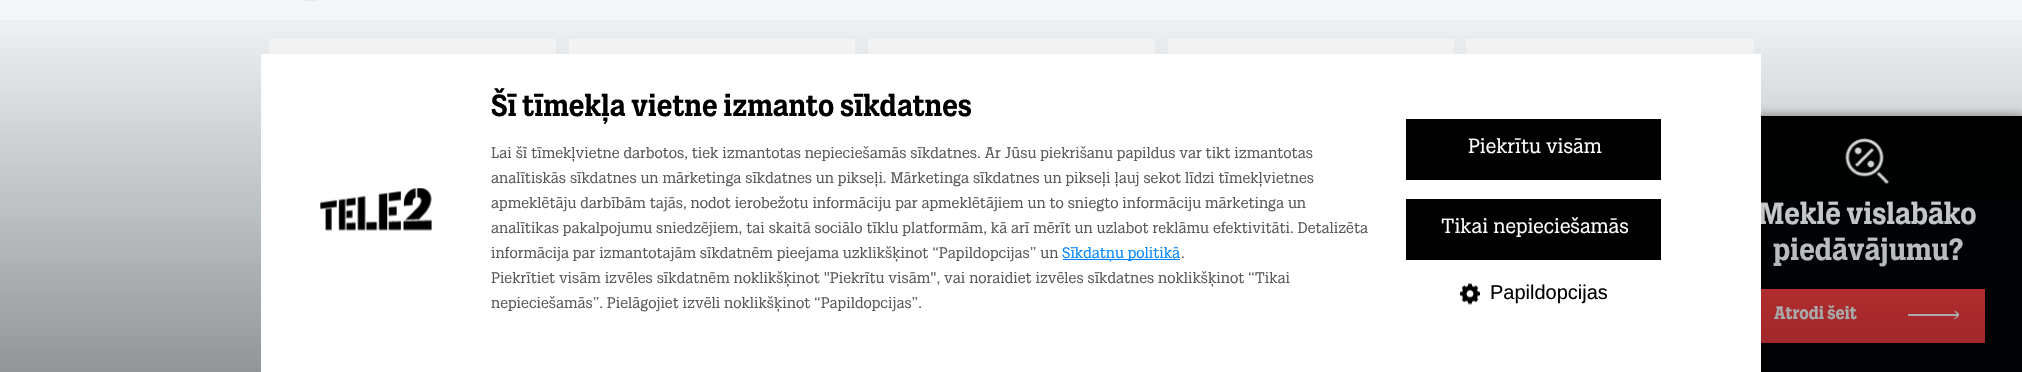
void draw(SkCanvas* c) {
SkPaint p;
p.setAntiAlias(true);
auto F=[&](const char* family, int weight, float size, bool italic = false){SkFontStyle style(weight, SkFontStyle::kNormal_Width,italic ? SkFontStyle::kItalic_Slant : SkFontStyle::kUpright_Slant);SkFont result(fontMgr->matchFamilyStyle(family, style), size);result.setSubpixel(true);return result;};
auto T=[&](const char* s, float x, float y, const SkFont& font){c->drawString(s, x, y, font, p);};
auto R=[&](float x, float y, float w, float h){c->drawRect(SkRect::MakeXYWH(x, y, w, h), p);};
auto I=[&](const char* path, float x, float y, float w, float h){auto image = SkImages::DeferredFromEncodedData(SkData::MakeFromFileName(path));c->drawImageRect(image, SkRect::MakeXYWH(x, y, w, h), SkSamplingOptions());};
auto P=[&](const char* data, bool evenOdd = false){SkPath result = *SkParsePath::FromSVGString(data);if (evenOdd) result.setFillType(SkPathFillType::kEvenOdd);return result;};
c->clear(0xfff3f7f9);
p.setColor(0xffffffff);
R(269,39,287,15);
R(569,39,286,15);
R(868,39,287,15);
R(1168,39,286,15);
R(1466,39,288,15);
p.setColor(0xff999999);
p.setMaskFilter(SkMaskFilter::MakeBlur(kNormal_SkBlurStyle, 5));
c->drawRect(SkRect::MakeXYWH(1711,115,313,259),p);
p.setMaskFilter(nullptr);
p.setColor(0xff000000);
R(1761,116,261,256);
I("3.png",1845,138,44,47);
auto f1 = F("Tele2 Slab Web",700,30);
p.setColor(0xffffffff);
T("Meklē vislabāko",1758,224,f1);
T("piedāvājumu?",1773,260,f1);
p.setColor(0xffff3e3f);
R(1761,289,224,54);
auto f2 = F("Tele2 Slab Web",700,17.5);
p.setColor(0xffffffff);
T("Atrodi šeit",1774,319,f2);
c->drawPath(P("M1959 315c2-1-9-8-3-2l2 2l-4 4c1 1 5-3 5-4zm-51 1h51v-2h-51z"),p);
{
const SkColor colors[] = {0x00000307,0x66000307};
const float stops[] = {0,1};
const SkPoint ends[] = {{1011,0}, {1011,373}};
p.setShader(SkGradientShader::MakeLinear(ends, colors, stops, 2, SkTileMode::kClamp));
p.setAlpha(255);
}
R(0,20,2022,352);
p.setShader(nullptr);
p.setColor(0xffffffff);
R(261,54,1500,318);
I("1.png",320,188,112,43);
p.setColor(0xff000000);
T("Šī tīmekļa vietne izmanto sīkdatnes",491,116,f1);
auto f3 = F("Tele2 Slab Web",400,15);
p.setColor(0xff595959);
T("Lai šī tīmekļvietne darbotos, tiek izmantotas nepieciešamās sīkdatnes. Ar Jūsu piekrišanu papildus var tikt izmantotas",491,158,f3);
T("analītiskās sīkdatnes un mārketinga sīkdatnes un pikseļi. Mārketinga sīkdatnes un pikseļi ļauj sekot līdzi tīmekļvietnes",491,183,f3);
T("apmeklētāju darbībām tajās, nodot ierobežotu informāciju par apmeklētājiem un to sniegto informāciju mārketinga un",491,208,f3);
T("analītikas pakalpojumu sniedzējiem, tai skaitā sociālo tīklu platformām, kā arī mērīt un uzlabot reklāmu efektivitāti. Detalizēta",491,233,f3);
T("informācija par izmantotajām sīkdatnēm pieejama uzklikšķinot “Papildopcijas” un",491,258,f3);
p.setColor(0xff0086ff);
R(1063,259,117,1);
T("Sīkdatņu politikā",1062,258,f3);
p.setColor(0xff595959);
T(".",1181,258,f3);
T("Piekrītiet visām izvēles sīkdatnēm noklikšķinot \"Piekrītu visām\", vai noraidiet izvēles sīkdatnes noklikšķinot “Tikai",491,283,f3);
T("nepieciešamās”. Pielāgojiet izvēli noklikšķinot “Papildopcijas”.",491,308,f3);
p.setColor(0xff000000);
R(1406,119,255,61);
auto f4 = F("Tele2 Slab Web",400,20);
p.setColor(0xffffffff);
T("Piekrītu visām",1468,153,f4);
p.setColor(0xff000000);
R(1406,199,255,61);
p.setColor(0xffffffff);
T("Tikai nepieciešamās",1441,233,f4);
I("2.png",1460,283,20,22);
auto f5 = F("Liberation Sans",400,20);
p.setColor(0xff000000);
T("Papildopcijas",1490,299,f5);
p.setStroke(true);
p.setStrokeWidth(1.2);
p.setColor(0xffe1e7eb);
c->drawPath(P("M310-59.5c15.5 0 28 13.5 28 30c0 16.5-12.5 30-28 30c-15.5 0-28-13.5-28-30c0-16.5 12.5-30 28-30z"),p);
}
